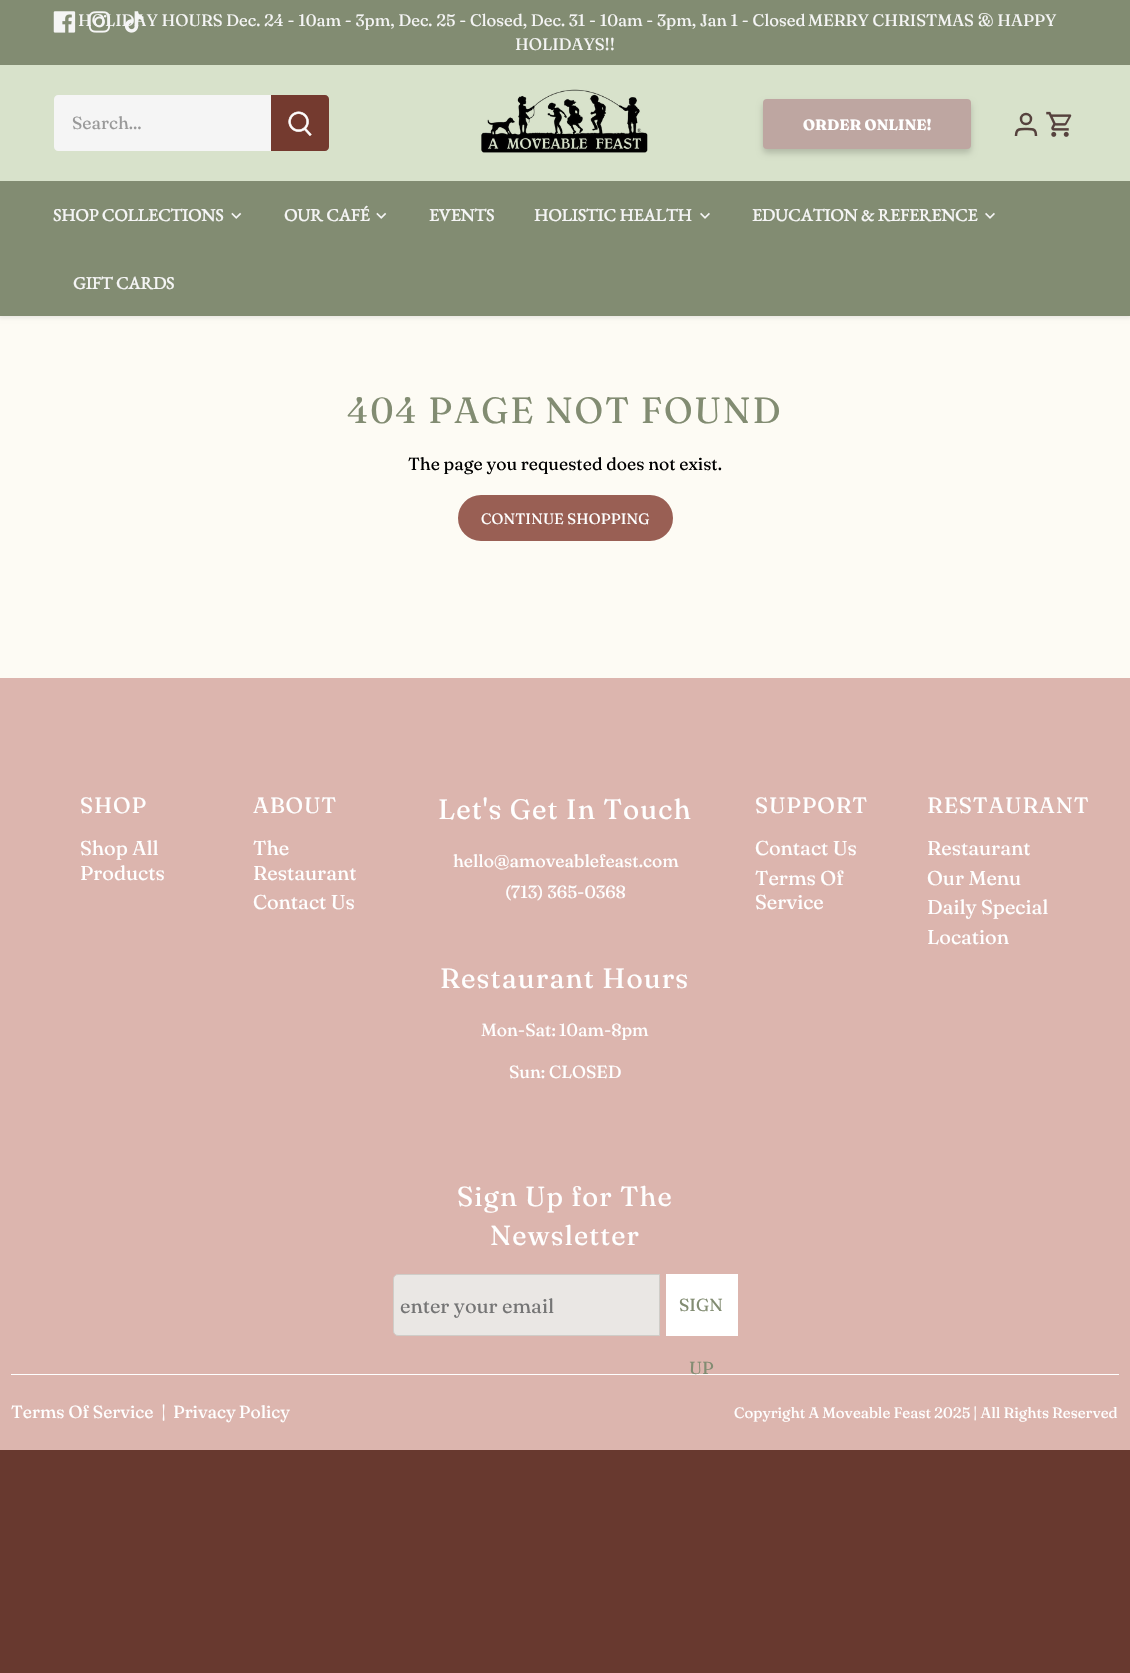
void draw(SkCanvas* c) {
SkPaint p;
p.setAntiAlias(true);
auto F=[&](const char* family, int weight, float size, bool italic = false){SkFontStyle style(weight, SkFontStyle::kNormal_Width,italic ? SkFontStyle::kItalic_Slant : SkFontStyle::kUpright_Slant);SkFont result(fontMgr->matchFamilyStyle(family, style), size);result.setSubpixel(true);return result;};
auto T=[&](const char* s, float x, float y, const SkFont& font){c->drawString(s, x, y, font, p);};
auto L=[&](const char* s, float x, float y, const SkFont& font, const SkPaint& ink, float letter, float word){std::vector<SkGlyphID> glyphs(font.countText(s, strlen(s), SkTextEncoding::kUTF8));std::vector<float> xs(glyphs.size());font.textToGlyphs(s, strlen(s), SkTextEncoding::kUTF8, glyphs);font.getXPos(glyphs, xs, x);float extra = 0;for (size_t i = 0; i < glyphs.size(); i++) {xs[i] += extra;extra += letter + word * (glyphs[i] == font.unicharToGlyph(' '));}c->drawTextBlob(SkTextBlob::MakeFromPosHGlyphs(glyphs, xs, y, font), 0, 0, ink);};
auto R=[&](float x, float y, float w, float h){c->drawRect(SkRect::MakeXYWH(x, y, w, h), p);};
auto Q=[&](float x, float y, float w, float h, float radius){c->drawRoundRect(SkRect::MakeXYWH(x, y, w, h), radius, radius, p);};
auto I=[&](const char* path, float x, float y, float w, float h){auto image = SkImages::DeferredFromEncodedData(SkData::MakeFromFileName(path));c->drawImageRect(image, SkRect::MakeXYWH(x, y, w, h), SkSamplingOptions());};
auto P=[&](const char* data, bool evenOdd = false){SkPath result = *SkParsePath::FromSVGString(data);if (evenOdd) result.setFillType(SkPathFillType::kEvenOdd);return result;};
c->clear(0xff68392f);
p.setColor(0xfffdfbf4);
R(0,316,1130,362);
p.setColor(0x14000000);
p.setMaskFilter(SkMaskFilter::MakeBlur(kNormal_SkBlurStyle, 2));
c->drawRect(SkRect::MakeXYWH(-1,64,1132,254),p);
p.setMaskFilter(nullptr);
p.setColor(0xff828c72);
R(0,0,1130,65);
I("1.png",53,11,23,22);
auto f1 = F("Fraunces",400,16.6);
p.setColor(0xfff5f5f5);
T("HOLIDAY HOURS",78,26,f1);
I("2.png",88,11,23,22);
I("3.png",124,11,20,22);
T("Dec. 24 - 10am - 3pm, Dec. 25 - Closed, Dec. 31 - 10am - 3pm, Jan 1 - Closed",226,26,f1);
T("MERRY CHRISTMAS & HAPPY",808,26,f1);
T("HOLIDAYS!!",515,50,f1);
p.setColor(0xff828c72);
R(0,181,1130,135);
p.setColor(0xffd8e2cb);
R(0,65,1130,116);
p.setColor(0xfff5f5f5);
c->drawPath(P("M58 95h215v56h-215c-2 0-4-2-4-4v-48c0-2 2-4 4-4z"),p);
auto f2 = F("Fraunces",400,17.5);
p.setColor(0xff999999);
T("Search...",72,129,f2);
p.setColor(0xff743a2f);
c->drawPath(P("M271 95h54c2 0 4 2 4 4v48c0 2-2 4-4 4h-54z"),p);
I("4.png",288,111,24,25);
I("5.png",481,89,167,64);
p.setColor(0x2e000000);
p.setMaskFilter(SkMaskFilter::MakeBlur(kNormal_SkBlurStyle, 3));
c->drawRoundRect(SkRect::MakeXYWH(763,103,208,50),4,4,p);
p.setMaskFilter(nullptr);
p.setColor(0xffbea6a1);
Q(763,99,208,50,4);
auto f3 = F("Fraunces",700,14.9);
p.setColor(0xffffffff);
L("ORDER ONLINE!",803,130,f3,p,.1,0);
p.setStroke(true);
p.setStrokeWidth(2.5);
p.setColor(0xff56423e);
c->drawCircle(1026,119,5,p);
c->drawPath(P("M1036 136c0-7.5-3-7-10-7c-6.5 0-10-.5-10 7"),p);
I("6.png",1046,111,26,26);
auto f4 = F("EB Garamond",700,17.5);
p.setStroke(false);
p.setColor(0xfff5f5f5);
T("SHOP COLLECTIONS",53,221,f4);
I("7.png",231,212,11,7);
T("OUR CAFÉ",284,221,f4);
I("7.png",376,212,11,7);
T("EVENTS",429,221,f4);
T("HOLISTIC HEALTH",534,221,f4);
I("8.png",700,212,10,7);
T("EDUCATION & REFERENCE",752,221,f4);
I("8.png",985,212,10,7);
T("GIFT CARDS",73,289,f4);
auto f5 = F("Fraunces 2",400,36.25);
p.setColor(0xff828c72);
L("404 PAGE NOT FOUND",347,423,f5,p,1.8,0);
p.setColor(0xff000000);
L("The page you requested does not exist.",408,470,f2,p,0,-.25);
p.setColor(0xff995f54);
c->drawRoundRect(SkRect::MakeXYWH(459.5,496.5,212,43),21.5,21.5,p);
p.setStroke(true);
p.setStrokeWidth(3);
c->drawRoundRect(SkRect::MakeXYWH(459.5,496.5,212,43),21.5,21.5,p);
auto f6 = F("Fraunces",400,14.9);
p.setStroke(false);
p.setColor(0xffffffff);
L("CONTINUE SHOPPING",481,524,f6,p,.1,0);
p.setColor(0xffdcb5ae);
R(0,678,1130,772);
auto f7 = F("Fraunces",400,22);
p.setColor(0xffffffff);
L("SHOP",80,813,f7,p,.9,0);
auto f8 = F("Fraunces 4",400,20);
T("Shop All",80,855,f8);
T("Products",80,880,f8);
L("ABOUT",253,813,f7,p,.9,0);
T("The",253,855,f8);
T("Restaurant",253,880,f8);
T("Contact Us",253,909,f8);
auto f9 = F("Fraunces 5",400,28);
L("Let's Get In Touch",438,819,f9,p,1.1,0);
T("hello@amoveablefeast.com",453,867,f2);
T("(713) 365-0368",505,898,f2);
L("Restaurant Hours",440,988,f9,p,1.1,0);
L("Mon-Sat: 10am-8pm",481,1036,f2,p,0,-1);
T("Sun: CLOSED",509,1078,f2);
L("SUPPORT",755,813,f7,p,.9,0);
T("Contact Us",755,855,f8);
T("Terms Of",755,885,f8);
T("Service",755,909,f8);
L("RESTAURANT",927,813,f7,p,.9,0);
T("Restaurant",927,855,f8);
T("Our Menu",927,885,f8);
T("Daily Special",927,914,f8);
T("Location",927,944,f8);
auto f10 = F("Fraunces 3",400,27.5);
L("Sign Up for The",457,1206,f10,p,1.1,0);
L("Newsletter",490,1245,f10,p,1.1,0);
p.setColor(0xffeae7e4);
c->drawPath(P("M398 1274.5h261.5v61h-261.5c-2.5 0-4.5-2-4.5-4.5v-52c0-2.5 2-4.5 4.5-4.5z"),p);
p.setStroke(true);
p.setStrokeWidth(1);
p.setColor(0xffcfcdc8);
c->drawPath(P("M398 1274.5h261.5v61h-261.5c-2.5 0-4.5-2-4.5-4.5v-52c0-2.5 2-4.5 4.5-4.5z"),p);
p.setStroke(false);
p.setColor(0xff757575);
T("enter your email",400,1313,f8);
p.setColor(0xffffffff);
R(666,1274,72,62);
p.setColor(0xff828c72);
T("SIGN",679,1311,f2);
p.setColor(0xffffffff);
R(11,1374,1108,1);
p.setColor(0xff828c72);
T("UP",689,1374,f2);
p.setColor(0xffffffff);
T("Terms Of Service  |",11,1418,f2);
L("Privacy Policy",173,1418,f2,p,0,-1);
auto f11 = F("Fraunces",400,15);
L("Copyright A Moveable Feast 2025 | All Rights Reserved",734,1418,f11,p,0,-.25);
}
